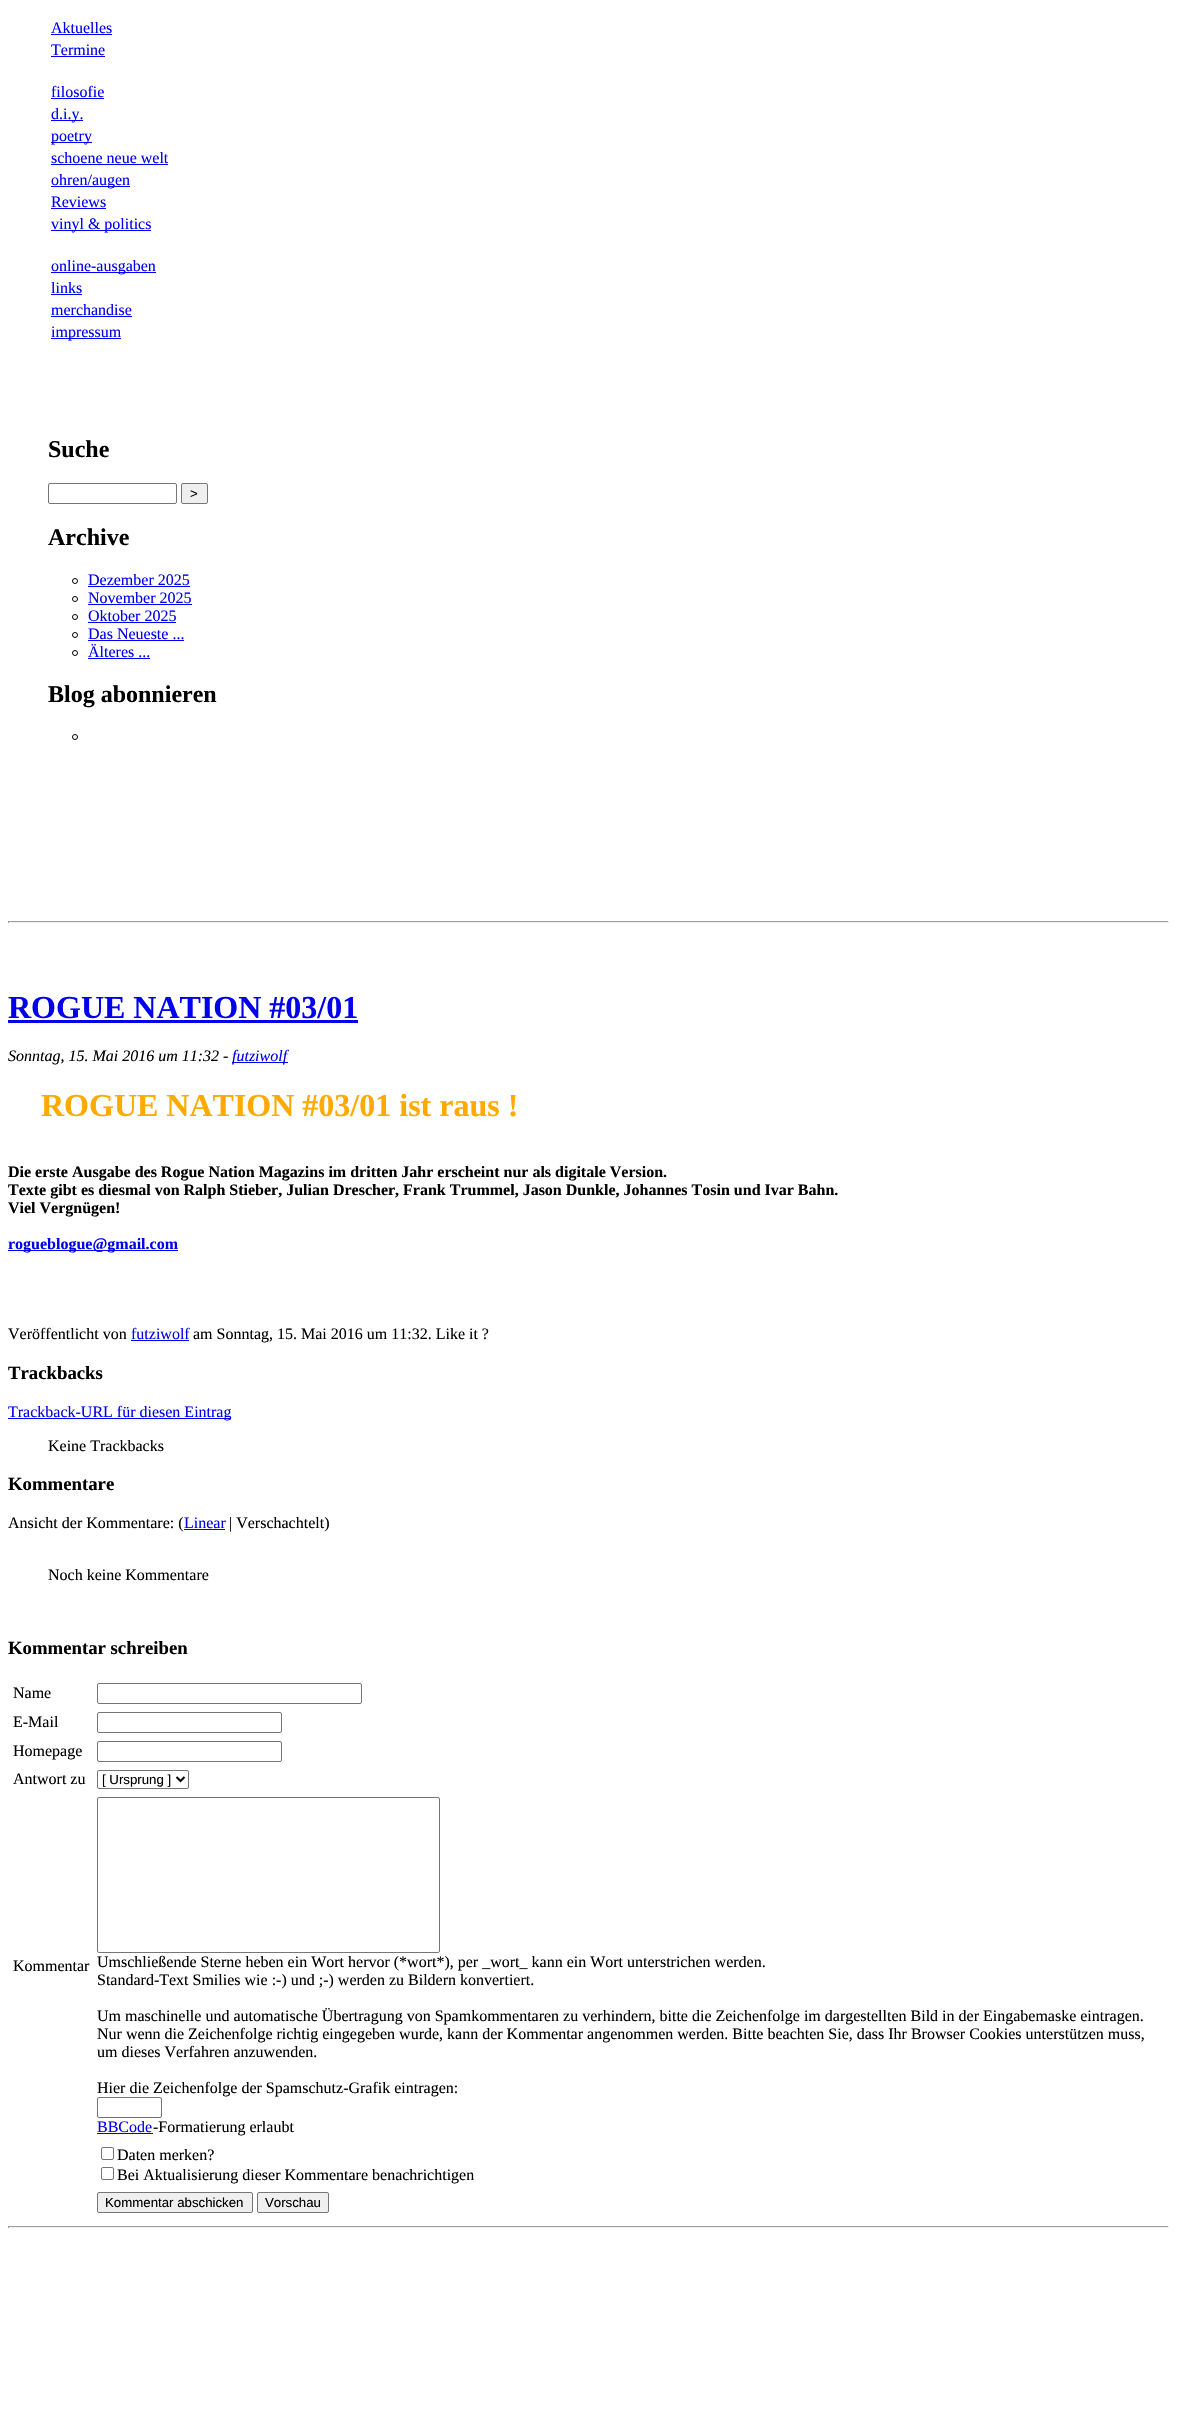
void draw(SkCanvas* c) {
SkPaint p;
p.setAntiAlias(true);
auto F=[&](const char* family, int weight, float size, bool italic = false){SkFontStyle style(weight, SkFontStyle::kNormal_Width,italic ? SkFontStyle::kItalic_Slant : SkFontStyle::kUpright_Slant);SkFont result(fontMgr->matchFamilyStyle(family, style), size);result.setSubpixel(true);return result;};
auto T=[&](const char* s, float x, float y, const SkFont& font){c->drawString(s, x, y, font, p);};
auto R=[&](float x, float y, float w, float h){c->drawRect(SkRect::MakeXYWH(x, y, w, h), p);};
auto P=[&](const char* data, bool evenOdd = false){SkPath result = *SkParsePath::FromSVGString(data);if (evenOdd) result.setFillType(SkPathFillType::kEvenOdd);return result;};
c->clear(0xffffffff);
auto f1 = F("Liberation Serif",400,16);
p.setColor(0xff0000ee);
T("Aktuelles",51,33,f1);
R(51,34,61,1);
T("Termine",51,55,f1);
R(51,56,54,1);
T("filosofie",51,97,f1);
R(51,98,53,1);
R(51,120,32,1);
T("d.i.y.",51,119,f1);
R(51,142,41,1);
T("poetry",51,141,f1);
T("schoene neue welt",51,163,f1);
R(51,164,117,1);
R(51,186,79,1);
T("ohren/augen",51,185,f1);
T("Reviews",51,207,f1);
R(51,208,55,1);
R(51,230,100,1);
T("vinyl & politics",51,229,f1);
R(51,272,105,1);
T("online-ausgaben",51,271,f1);
T("links",51,293,f1);
R(51,294,31,1);
T("merchandise",51,315,f1);
R(51,316,81,1);
R(51,338,70,1);
T("impressum",51,337,f1);
auto f2 = F("Liberation Serif",700,24);
p.setColor(0xff000000);
T("Suche",48,457,f2);
p.setStroke(true);
p.setStrokeWidth(1);
p.setColor(0xff767676);
c->drawRoundRect(SkRect::MakeXYWH(48.5,483.5,128,20),1.5,1.5,p);
p.setStroke(false);
p.setColor(0xffefefef);
c->drawRoundRect(SkRect::MakeXYWH(181.5,483.5,26,20),1.5,1.5,p);
p.setStroke(true);
p.setColor(0xff767676);
c->drawRoundRect(SkRect::MakeXYWH(181.5,483.5,26,20),1.5,1.5,p);
auto f3 = F("Liberation Sans",400,13.25);
p.setStroke(false);
p.setColor(0xff000000);
T(">",190,498,f3);
T("Archive",48,545,f2);
p.setStroke(true);
c->drawCircle(75,581,2.5,p);
p.setStroke(false);
p.setColor(0xff0000ee);
T("Dezember 2025",88,585,f1);
R(88,586,102,1);
p.setStroke(true);
p.setColor(0xff000000);
c->drawCircle(75,599,2.5,p);
p.setStroke(false);
p.setColor(0xff0000ee);
T("November 2025",88,603,f1);
R(88,604,104,1);
p.setStroke(true);
p.setColor(0xff000000);
c->drawCircle(75,617,2.5,p);
p.setStroke(false);
p.setColor(0xff0000ee);
T("Oktober 2025",88,621,f1);
R(88,622,88,1);
p.setStroke(true);
p.setColor(0xff000000);
c->drawCircle(75,635,2.5,p);
p.setStroke(false);
p.setColor(0xff0000ee);
T("Das Neueste ...",88,639,f1);
R(88,640,96,1);
p.setStroke(true);
p.setColor(0xff000000);
c->drawCircle(75,653,2.5,p);
p.setStroke(false);
p.setColor(0xff0000ee);
T("Älteres ...",88,657,f1);
R(88,658,62,1);
p.setColor(0xff000000);
T("Blog abonnieren",48,702,f2);
p.setStroke(true);
c->drawCircle(75,737,2.5,p);
p.setStroke(false);
p.setColor(0xff9f9f9f);
R(8,921,1161,1);
p.setColor(0xffeeeeee);
R(1168,921,1,2);
R(8,922,1161,1);
p.setColor(0xff9f9f9f);
R(8,921,1,2);
auto f4 = F("Liberation Serif",700,32);
p.setColor(0xff0000ee);
T("ROGUE NATION #03/01",8,1018,f4);
R(8,1020,350,3);
auto f5 = F("Liberation Serif",400,16,true);
p.setColor(0xff000000);
T("Sonntag, 15. Mai 2016 um 11:32 -",8,1061,f5);
p.setColor(0xff0000ee);
R(232,1062,56,1);
T("futziwolf",232,1061,f5);
p.setColor(0xffffaa00);
T("ROGUE NATION #03/01 ist raus !",41,1116,f4);
auto f6 = F("Liberation Serif",700,16);
p.setColor(0xff000000);
T("Die erste Ausgabe des Rogue Nation Magazins im dritten Jahr erscheint nur als digitale Version.",8,1177,f6);
T("Texte gibt es diesmal von Ralph Stieber, Julian Drescher, Frank Trummel, Jason Dunkle, Johannes Tosin und Ivar Bahn.",8,1195,f6);
T("Viel Vergnügen!",8,1213,f6);
p.setColor(0xff0000ee);
R(8,1250,170,1);
T("rogueblogue@gmail.com",8,1249,f6);
p.setColor(0xff000000);
T("Veröffentlicht von",8,1339,f1);
p.setColor(0xff0000ee);
T("futziwolf",131,1339,f1);
R(131,1340,58,1);
p.setColor(0xff000000);
T("am Sonntag, 15. Mai 2016 um 11:32. Like it ?",193,1339,f1);
auto f7 = F("Liberation Serif",700,18.75);
T("Trackbacks",8,1379,f7);
p.setColor(0xff0000ee);
R(8,1418,223,1);
T("Trackback-URL für diesen Eintrag",8,1417,f1);
p.setColor(0xff000000);
T("Keine Trackbacks",48,1451,f1);
T("Kommentare",8,1490,f7);
T("Ansicht der Kommentare: (",8,1528,f1);
p.setColor(0xff0000ee);
T("Linear",184,1528,f1);
R(184,1529,41,1);
p.setColor(0xff000000);
T("| Verschachtelt)",229,1528,f1);
T("Noch keine Kommentare",48,1580,f1);
T("Kommentar schreiben",8,1654,f7);
T("Name",13,1698,f1);
p.setStroke(true);
p.setColor(0xff767676);
c->drawRoundRect(SkRect::MakeXYWH(97.5,1683.5,264,20),1.5,1.5,p);
p.setStroke(false);
p.setColor(0xff000000);
T("E-Mail",13,1727,f1);
p.setStroke(true);
p.setColor(0xff767676);
c->drawRoundRect(SkRect::MakeXYWH(97.5,1712.5,184,20),1.5,1.5,p);
p.setStroke(false);
p.setColor(0xff000000);
T("Homepage",13,1756,f1);
p.setStroke(true);
p.setColor(0xff767676);
c->drawRoundRect(SkRect::MakeXYWH(97.5,1741.5,184,20),1.5,1.5,p);
p.setStroke(false);
p.setColor(0xff000000);
T("Antwort zu",13,1784,f1);
p.setStroke(true);
p.setColor(0xff767676);
c->drawRoundRect(SkRect::MakeXYWH(97.5,1770.5,91,18),1.5,1.5,p);
p.setStrokeWidth(2);
p.setColor(0xff000000);
c->drawPath(P("M176.5 1777l4 4l4-4"),p);
p.setStroke(false);
T("[ Ursprung ]",102,1784,f3);
T("Kommentar",13,1971,f1);
p.setStroke(true);
p.setStrokeWidth(1);
p.setColor(0xff767676);
c->drawRoundRect(SkRect::MakeXYWH(97.5,1797.5,342,155),1.5,1.5,p);
p.setStroke(false);
p.setColor(0xff000000);
T("Umschließende Sterne heben ein Wort hervor (*wort*), per _wort_ kann ein Wort unterstrichen werden.",97,1967,f1);
T("Standard-Text Smilies wie :-) und ;-) werden zu Bildern konvertiert.",97,1985,f1);
T("Um maschinelle und automatische Übertragung von Spamkommentaren zu verhindern, bitte die Zeichenfolge im dargestellten Bild in der Eingabemaske eintragen.",97,2021,f1);
T("Nur wenn die Zeichenfolge richtig eingegeben wurde, kann der Kommentar angenommen werden. Bitte beachten Sie, dass Ihr Browser Cookies unterstützen muss,",97,2039,f1);
T("um dieses Verfahren anzuwenden.",97,2057,f1);
T("Hier die Zeichenfolge der Spamschutz-Grafik eintragen:",97,2093,f1);
p.setStroke(true);
p.setColor(0xff767676);
c->drawRoundRect(SkRect::MakeXYWH(97.5,2097.5,64,20),1.5,1.5,p);
p.setStroke(false);
p.setColor(0xff0000ee);
T("BBCode",97,2132,f1);
R(97,2133,56,1);
p.setColor(0xff000000);
T("-Formatierung erlaubt",153,2132,f1);
p.setStroke(true);
p.setColor(0xff767676);
c->drawRoundRect(SkRect::MakeXYWH(101.5,2147.5,12,12),1.5,1.5,p);
p.setStroke(false);
p.setColor(0xff000000);
T("Daten merken?",117,2160,f1);
p.setStroke(true);
p.setColor(0xff767676);
c->drawRoundRect(SkRect::MakeXYWH(101.5,2167.5,12,12),1.5,1.5,p);
p.setStroke(false);
p.setColor(0xff000000);
T("Bei Aktualisierung dieser Kommentare benachrichtigen",117,2180,f1);
p.setColor(0xffefefef);
c->drawRoundRect(SkRect::MakeXYWH(97.5,2192.5,155,20),1.5,1.5,p);
p.setStroke(true);
p.setColor(0xff767676);
c->drawRoundRect(SkRect::MakeXYWH(97.5,2192.5,155,20),1.5,1.5,p);
p.setStroke(false);
p.setColor(0xff000000);
T("Kommentar abschicken",105,2207,f3);
p.setColor(0xffefefef);
c->drawRoundRect(SkRect::MakeXYWH(257.5,2192.5,71,20),1.5,1.5,p);
p.setStroke(true);
p.setColor(0xff767676);
c->drawRoundRect(SkRect::MakeXYWH(257.5,2192.5,71,20),1.5,1.5,p);
p.setStroke(false);
p.setColor(0xff000000);
T("Vorschau",265,2207,f3);
p.setColor(0xff9f9f9f);
R(8,2226,1161,1);
p.setColor(0xffeeeeee);
R(1168,2226,1,2);
R(8,2227,1161,1);
p.setColor(0xff9f9f9f);
R(8,2226,1,2);
}
